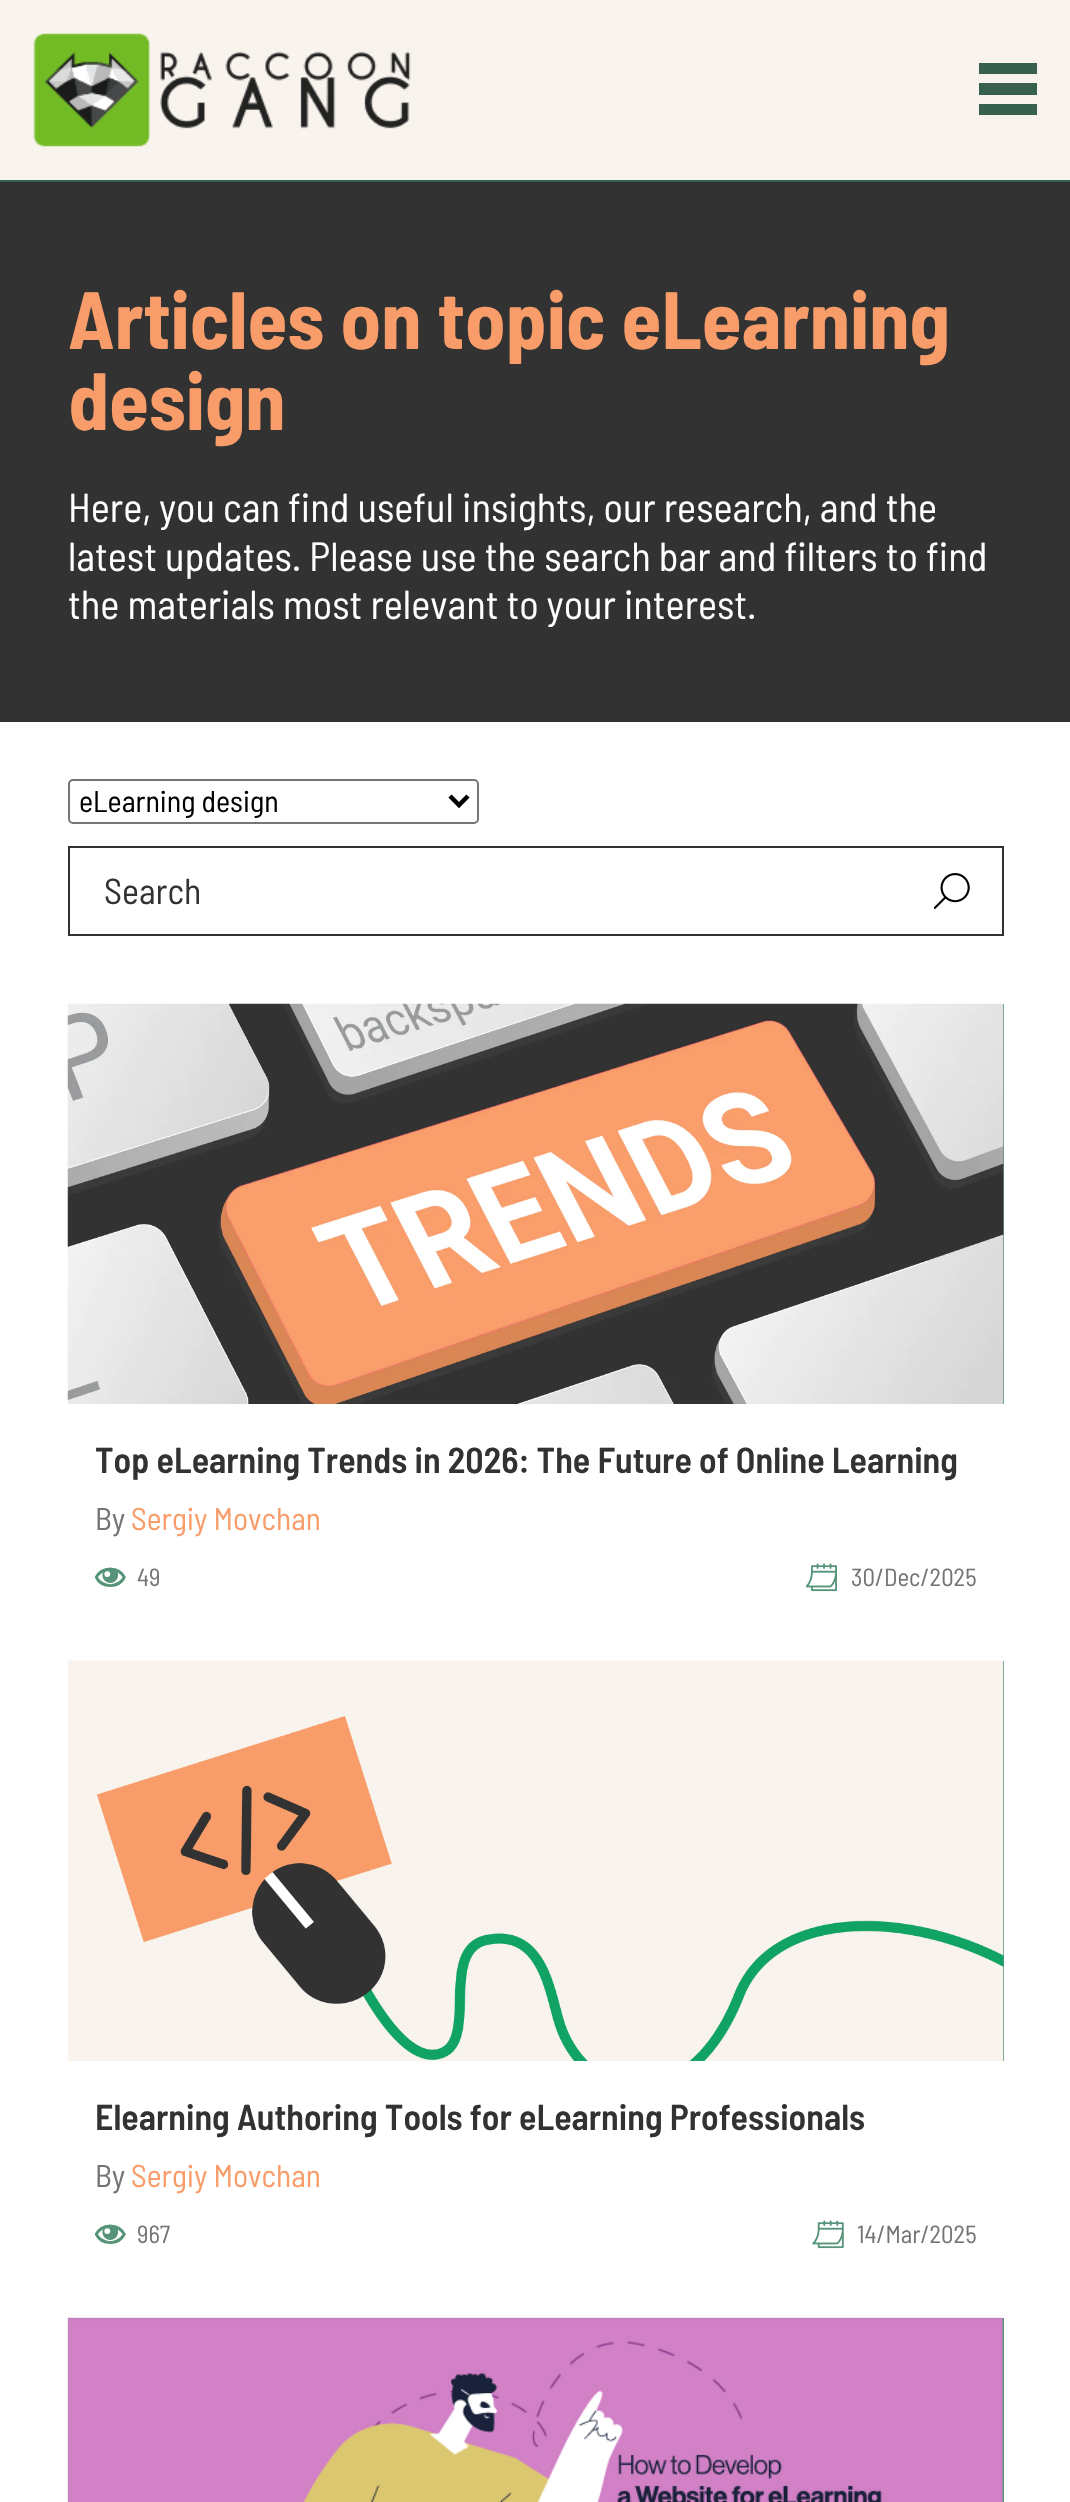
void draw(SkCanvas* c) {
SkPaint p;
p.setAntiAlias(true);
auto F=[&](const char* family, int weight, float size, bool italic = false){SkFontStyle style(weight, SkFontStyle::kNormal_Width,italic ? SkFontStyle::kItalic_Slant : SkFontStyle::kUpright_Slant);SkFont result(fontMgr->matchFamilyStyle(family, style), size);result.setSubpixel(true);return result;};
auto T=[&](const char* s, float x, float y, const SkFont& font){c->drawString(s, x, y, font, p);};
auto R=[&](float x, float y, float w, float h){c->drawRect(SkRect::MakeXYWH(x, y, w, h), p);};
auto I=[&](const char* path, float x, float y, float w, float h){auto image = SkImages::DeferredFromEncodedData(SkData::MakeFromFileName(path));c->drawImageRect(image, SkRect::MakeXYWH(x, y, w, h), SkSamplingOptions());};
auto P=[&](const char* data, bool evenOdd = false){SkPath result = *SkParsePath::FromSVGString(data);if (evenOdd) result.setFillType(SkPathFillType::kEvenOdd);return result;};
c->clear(0xffffffff);
p.setColor(0xfff9f3ed);
R(0,0,1070,180);
p.setColor(0xff37604f);
R(0,180,1070,2);
I("1.png",33,33,378,114);
R(979,63,58,11);
R(979,83,58,12);
R(979,104,58,11);
p.setColor(0xff323232);
R(0,182,1070,540);
auto f1 = F("Barlow Semi Condensed",700,81);
p.setColor(0xfff89d6a);
T("Articles on topic eLearning",68,349,f1);
T("design",68,430,f1);
auto f2 = F("Barlow Semi Condensed",400,40.5);
p.setColor(0xffffffff);
T("Here, you can find useful insights, our research, and the",68,522,f2);
T("latest updates. Please use the search bar and filters to find",68,571,f2);
T("the materials most relevant to your interest.",68,619,f2);
p.setStroke(true);
p.setStrokeWidth(2);
p.setColor(0xff767676);
c->drawRoundRect(SkRect::MakeXYWH(69,780,409,43),4,4,p);
p.setStrokeWidth(4.5);
p.setColor(0xff000000);
c->drawPath(P("M450 796l9 9l9-9"),p);
auto f3 = F("Barlow Semi Condensed",400,30);
p.setStroke(false);
T("eLearning design",79,812,f3);
p.setStroke(true);
p.setStrokeWidth(2);
p.setColor(0xff323232);
c->drawRect(SkRect::MakeXYWH(69,847,934,88),p);
auto f4 = F("Barlow Semi Condensed",400,36);
p.setStroke(false);
T("Search",104,904,f4);
I("2.png",934,873,36,36);
p.setColor(0xff559479);
R(1003,1004,1,400);
I("3.png",67,1003,937,401);
auto f5 = F("Barlow Semi Condensed",600,36);
p.setColor(0xff323232);
T("Top eLearning Trends in 2026: The Future of Online Learning",95,1473,f5);
auto f6 = F("Barlow Semi Condensed",400,31.5);
p.setColor(0xff747474);
T("By",95,1530,f6);
p.setColor(0xfff89d6a);
T("Sergiy Movchan",131,1530,f6);
I("4.png",94,1567,32,20);
auto f7 = F("Barlow Semi Condensed",400,24.75);
p.setColor(0xff747474);
T("49",137,1586,f7);
I("5.png",806,1563,31,29);
T("30/Dec/2025",851,1586,f7);
p.setColor(0xff559479);
R(1003,1661,1,400);
I("6.png",67,1660,937,401);
p.setColor(0xff323232);
T("Elearning Authoring Tools for eLearning Professionals",95,2130,f5);
p.setColor(0xff747474);
T("By",95,2187,f6);
p.setColor(0xfff89d6a);
T("Sergiy Movchan",131,2187,f6);
I("4.png",94,2224,32,20);
p.setColor(0xff747474);
T("967",137,2243,f7);
I("7.png",812,2220,32,29);
T("14/Mar/2025",857,2243,f7);
p.setColor(0xff559479);
R(68,2318,936,184);
I("8.png",67,2317,937,185);
}
